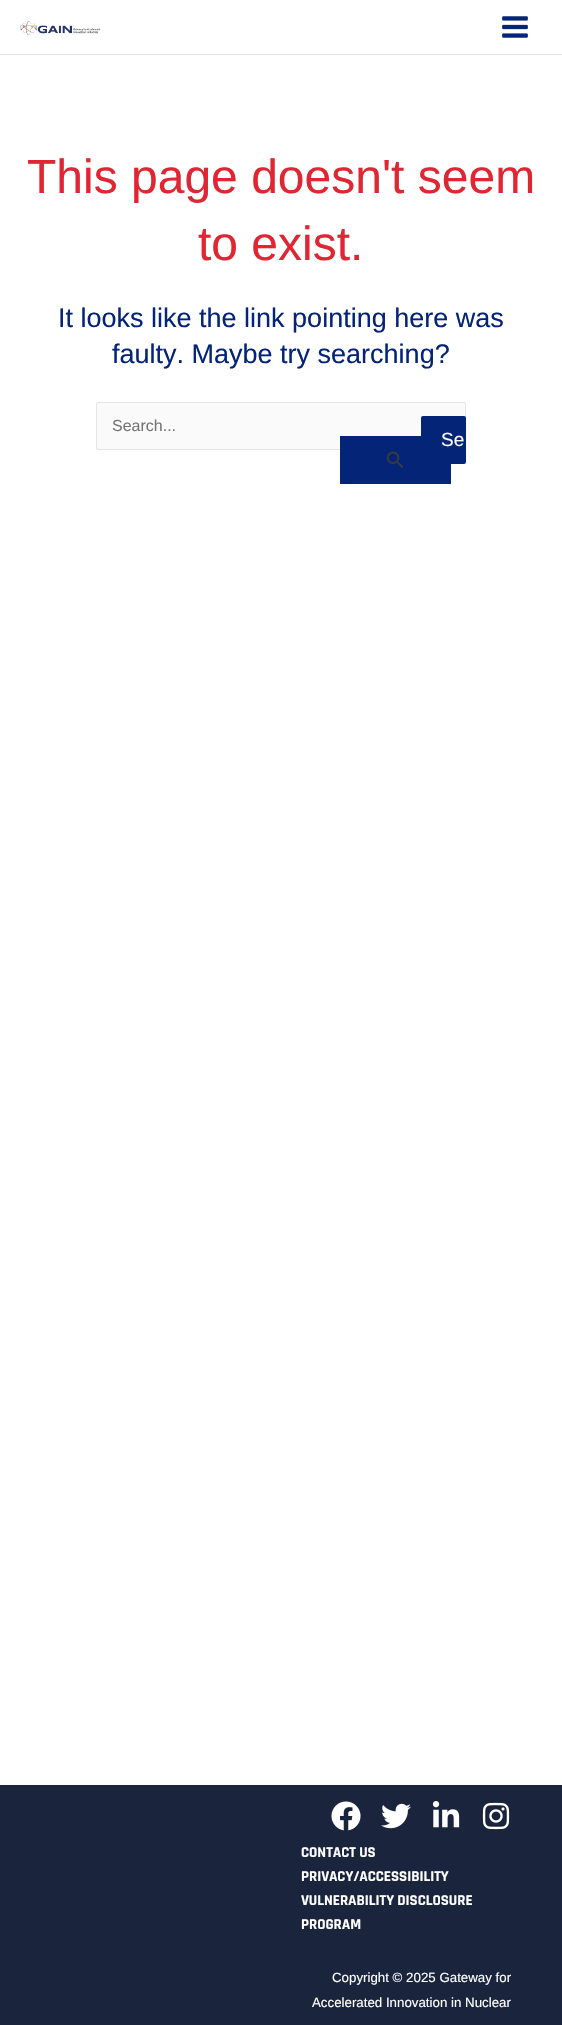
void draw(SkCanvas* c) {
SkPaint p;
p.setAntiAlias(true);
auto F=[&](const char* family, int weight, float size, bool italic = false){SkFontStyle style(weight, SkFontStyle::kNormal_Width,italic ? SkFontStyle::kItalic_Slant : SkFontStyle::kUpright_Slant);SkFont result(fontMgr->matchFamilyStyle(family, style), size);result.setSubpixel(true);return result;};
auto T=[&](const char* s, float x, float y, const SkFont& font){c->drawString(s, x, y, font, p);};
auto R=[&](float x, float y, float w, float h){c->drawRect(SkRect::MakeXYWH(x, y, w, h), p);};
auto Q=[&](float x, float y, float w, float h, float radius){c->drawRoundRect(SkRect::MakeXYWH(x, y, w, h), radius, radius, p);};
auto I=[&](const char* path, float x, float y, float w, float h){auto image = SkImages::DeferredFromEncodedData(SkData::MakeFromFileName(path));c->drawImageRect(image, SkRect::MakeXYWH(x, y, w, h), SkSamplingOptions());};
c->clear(0xffffffff);
p.setColor(0xffe5e5e5);
R(0,54,562,1);
I("1.png",20,21,80,14);
I("2.png",502,16,26,22);
auto f1 = F("Liberation Sans",400,48);
p.setColor(0xffe02633);
T("This page doesn't seem",27,193,f1);
T("to exist.",198,260,f1);
auto f2 = F("Liberation Sans",400,27);
p.setColor(0xff032477);
T("It looks like the link pointing here was",58,327,f2);
T("faulty. Maybe try searching?",112,363,f2);
p.setColor(0xfffafafa);
c->drawRoundRect(SkRect::MakeXYWH(96.5,402.5,369,47),1.5,1.5,p);
p.setStroke(true);
p.setStrokeWidth(1);
p.setColor(0xffe5e5e5);
c->drawRoundRect(SkRect::MakeXYWH(96.5,402.5,369,47),1.5,1.5,p);
auto f3 = F("Liberation Sans",400,16);
p.setStroke(false);
p.setColor(0xff757575);
T("Search...",112,431,f3);
p.setColor(0xff032477);
R(340,436,111,48);
I("3.png",386,451,17,18);
Q(421,416,45,48,2);
auto f4 = F("Liberation Sans",400,19);
p.setColor(0xffffffff);
T("Se",441,446,f4);
p.setColor(0xff1a243d);
R(0,1785,562,240);
I("4.png",331,1801,30,30);
I("5.png",381,1803,30,26);
I("6.png",432,1801,28,27);
I("7.png",482,1802,28,28);
auto f5 = F("Rajdhani",700,15);
p.setColor(0xffffffff);
T("CONTACT US",301,1857,f5);
T("PRIVACY/ACCESSIBILITY",301,1881,f5);
T("VULNERABILITY DISCLOSURE",301,1905,f5);
T("PROGRAM",301,1929,f5);
auto f6 = F("Liberation Sans",400,13.3);
T("Copyright © 2025 Gateway for",332,1982,f6);
T("Accelerated Innovation in Nuclear",312,2007,f6);
}
